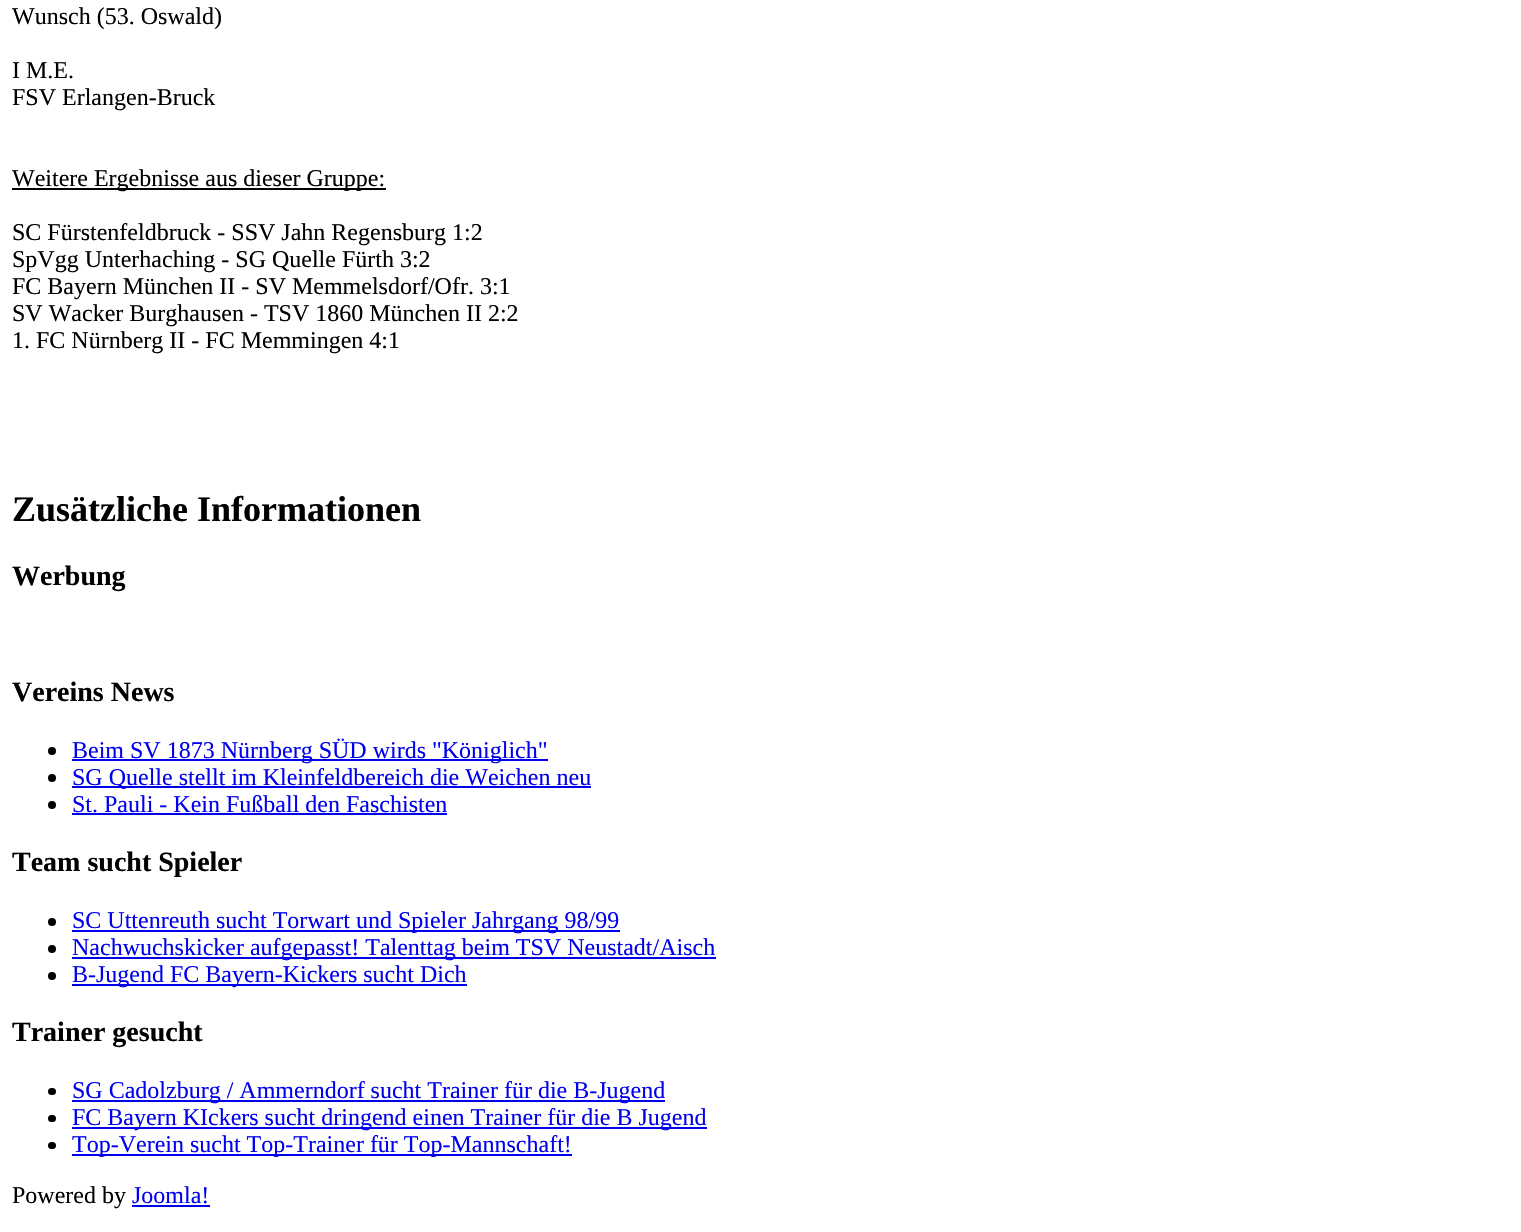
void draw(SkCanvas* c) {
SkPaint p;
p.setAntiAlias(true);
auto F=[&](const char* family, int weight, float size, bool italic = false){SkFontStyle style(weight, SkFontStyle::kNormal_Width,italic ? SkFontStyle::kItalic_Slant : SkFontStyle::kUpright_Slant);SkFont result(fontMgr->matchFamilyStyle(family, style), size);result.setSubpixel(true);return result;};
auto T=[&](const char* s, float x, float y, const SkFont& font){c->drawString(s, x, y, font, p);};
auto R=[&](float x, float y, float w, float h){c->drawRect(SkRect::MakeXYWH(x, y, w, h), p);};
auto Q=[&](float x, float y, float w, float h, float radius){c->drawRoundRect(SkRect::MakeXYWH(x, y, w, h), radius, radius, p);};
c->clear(0xffffffff);
auto f1 = F("Liberation Serif",400,24);
p.setColor(0xff000000);
T("Wunsch (53. Oswald)",12,24,f1);
T("I M.E.",12,78,f1);
T("FSV Erlangen-Bruck",12,105,f1);
R(12,188,374,2);
T("Weitere Ergebnisse aus dieser Gruppe:",12,186,f1);
T("SC Fürstenfeldbruck - SSV Jahn Regensburg 1:2",12,240,f1);
T("SpVgg Unterhaching - SG Quelle Fürth 3:2",12,267,f1);
T("FC Bayern München II - SV Memmelsdorf/Ofr. 3:1",12,294,f1);
T("SV Wacker Burghausen - TSV 1860 München II 2:2",12,321,f1);
T("1. FC Nürnberg II - FC Memmingen 4:1",12,348,f1);
auto f2 = F("Liberation Serif",700,36);
T("Zusätzliche Informationen",12,521,f2);
auto f3 = F("Liberation Serif",700,28);
T("Werbung",12,585,f3);
T("Vereins News",12,701,f3);
c->drawCircle(52,751,4,p);
p.setColor(0xff0000ee);
R(72,759,476,2);
T("Beim SV 1873 Nürnberg SÜD wirds \"Königlich\"",72,758,f1);
p.setColor(0xff000000);
c->drawCircle(52,778,4,p);
p.setColor(0xff0000ee);
R(72,786,519,2);
T("SG Quelle stellt im Kleinfeldbereich die Weichen neu",72,785,f1);
p.setColor(0xff000000);
c->drawCircle(52,805,4,p);
p.setColor(0xff0000ee);
T("St. Pauli - Kein Fußball den Faschisten",72,812,f1);
R(72,813,375,2);
p.setColor(0xff000000);
T("Team sucht Spieler",12,871,f3);
c->drawCircle(52,922,4,p);
p.setColor(0xff0000ee);
R(72,930,548,2);
T("SC Uttenreuth sucht Torwart und Spieler Jahrgang 98/99",72,928,f1);
p.setColor(0xff000000);
c->drawCircle(52,949,4,p);
p.setColor(0xff0000ee);
R(72,957,644,2);
T("Nachwuchskicker aufgepasst! Talenttag beim TSV Neustadt/Aisch",72,955,f1);
p.setColor(0xff000000);
c->drawCircle(52,976,4,p);
p.setColor(0xff0000ee);
R(72,984,395,2);
T("B-Jugend FC Bayern-Kickers sucht Dich",72,982,f1);
p.setColor(0xff000000);
T("Trainer gesucht",12,1041,f3);
Q(48,1088,8,7,3.5);
p.setColor(0xff0000ee);
R(72,1100,593,2);
T("SG Cadolzburg / Ammerndorf sucht Trainer für die B-Jugend",72,1098,f1);
p.setColor(0xff000000);
Q(48,1115,8,7,3.5);
p.setColor(0xff0000ee);
R(72,1127,635,2);
T("FC Bayern KIckers sucht dringend einen Trainer für die B Jugend",72,1125,f1);
p.setColor(0xff000000);
Q(48,1142,8,7,3.5);
p.setColor(0xff0000ee);
R(72,1154,500,2);
T("Top-Verein sucht Top-Trainer für Top-Mannschaft!",72,1152,f1);
p.setColor(0xff000000);
T("Powered by",12,1203,f1);
p.setColor(0xff0000ee);
T("Joomla!",132,1203,f1);
R(132,1205,78,2);
}
